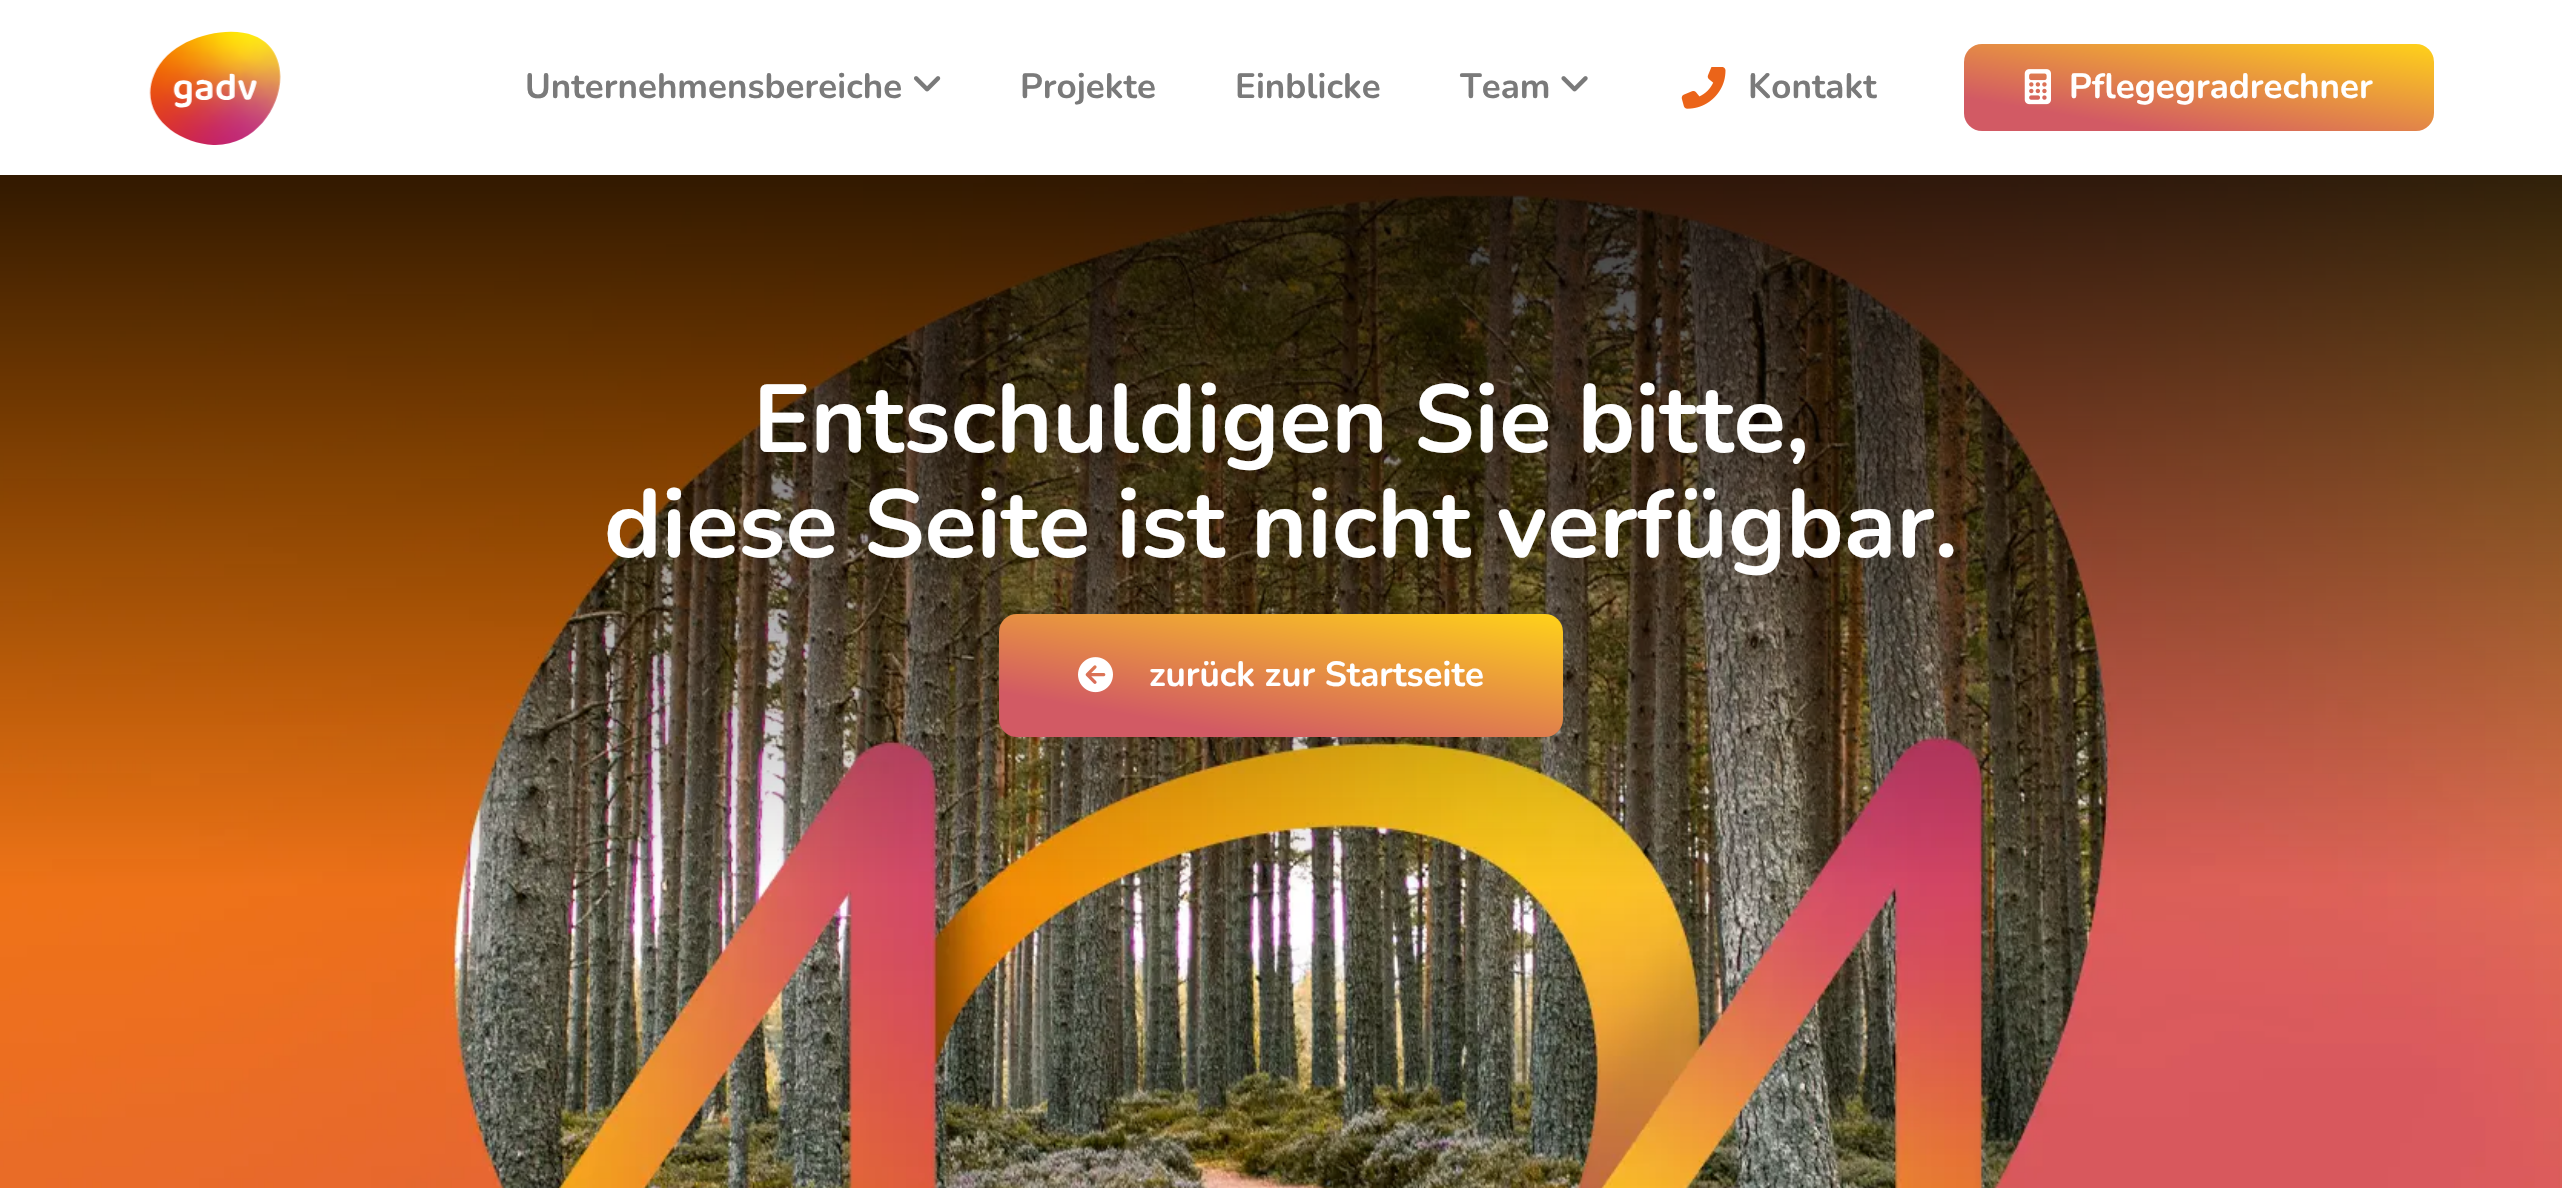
void draw(SkCanvas* c) {
SkPaint p;
p.setAntiAlias(true);
auto F=[&](const char* family, int weight, float size, bool italic = false){SkFontStyle style(weight, SkFontStyle::kNormal_Width,italic ? SkFontStyle::kItalic_Slant : SkFontStyle::kUpright_Slant);SkFont result(fontMgr->matchFamilyStyle(family, style), size);result.setSubpixel(true);return result;};
auto T=[&](const char* s, float x, float y, const SkFont& font){c->drawString(s, x, y, font, p);};
auto Q=[&](float x, float y, float w, float h, float radius){c->drawRoundRect(SkRect::MakeXYWH(x, y, w, h), radius, radius, p);};
auto I=[&](const char* path, float x, float y, float w, float h){auto image = SkImages::DeferredFromEncodedData(SkData::MakeFromFileName(path));c->drawImageRect(image, SkRect::MakeXYWH(x, y, w, h), SkSamplingOptions());};
c->clear(0xffffffff);
I("1.png",149,31,132,114);
auto f1 = F("Nunito",700,35);
p.setColor(0xff7a7a7a);
T("Unternehmensbereiche",525,98,f1);
I("2.png",914,76,27,16);
T("Projekte",1020,98,f1);
T("Einblicke",1235,98,f1);
T("Team",1460,98,f1);
I("3.png",1561,76,27,16);
I("4.png",1681,67,45,42);
T("Kontakt",1748,98,f1);
{
const SkColor colors[] = {0xffffd219,0xffd25a64};
const float stops[] = {0,.8};
const SkPoint ends[] = {{2213,4.8}, {2184,170}};
p.setShader(SkGradientShader::MakeLinear(ends, colors, stops, 2, SkTileMode::kClamp));
p.setAlpha(255);
}
Q(1964,44,470,87,18);
I("5.png",2024,69,27,36);
p.setShader(nullptr);
p.setColor(0xffffffff);
T("Pflegegradrechner",2069,98,f1);
I("6.png",0,175,2562,1013);
auto f2 = F("Nunito",700,96.25);
T("Entschuldigen Sie bitte,",753,452,f2);
T("diese Seite ist nicht verfügbar.",604,557,f2);
{
const SkColor colors[] = {0xffffd219,0xffd25a64};
const float stops[] = {0,.8};
const SkPoint ends[] = {{1300,568}, {1262,783}};
p.setShader(SkGradientShader::MakeLinear(ends, colors, stops, 2, SkTileMode::kClamp));
p.setAlpha(255);
}
Q(999,614,564,123,18);
I("7.png",1078,657,35,36);
p.setShader(nullptr);
p.setColor(0xffffffff);
T("zurück zur Startseite",1149,686,f1);
}
